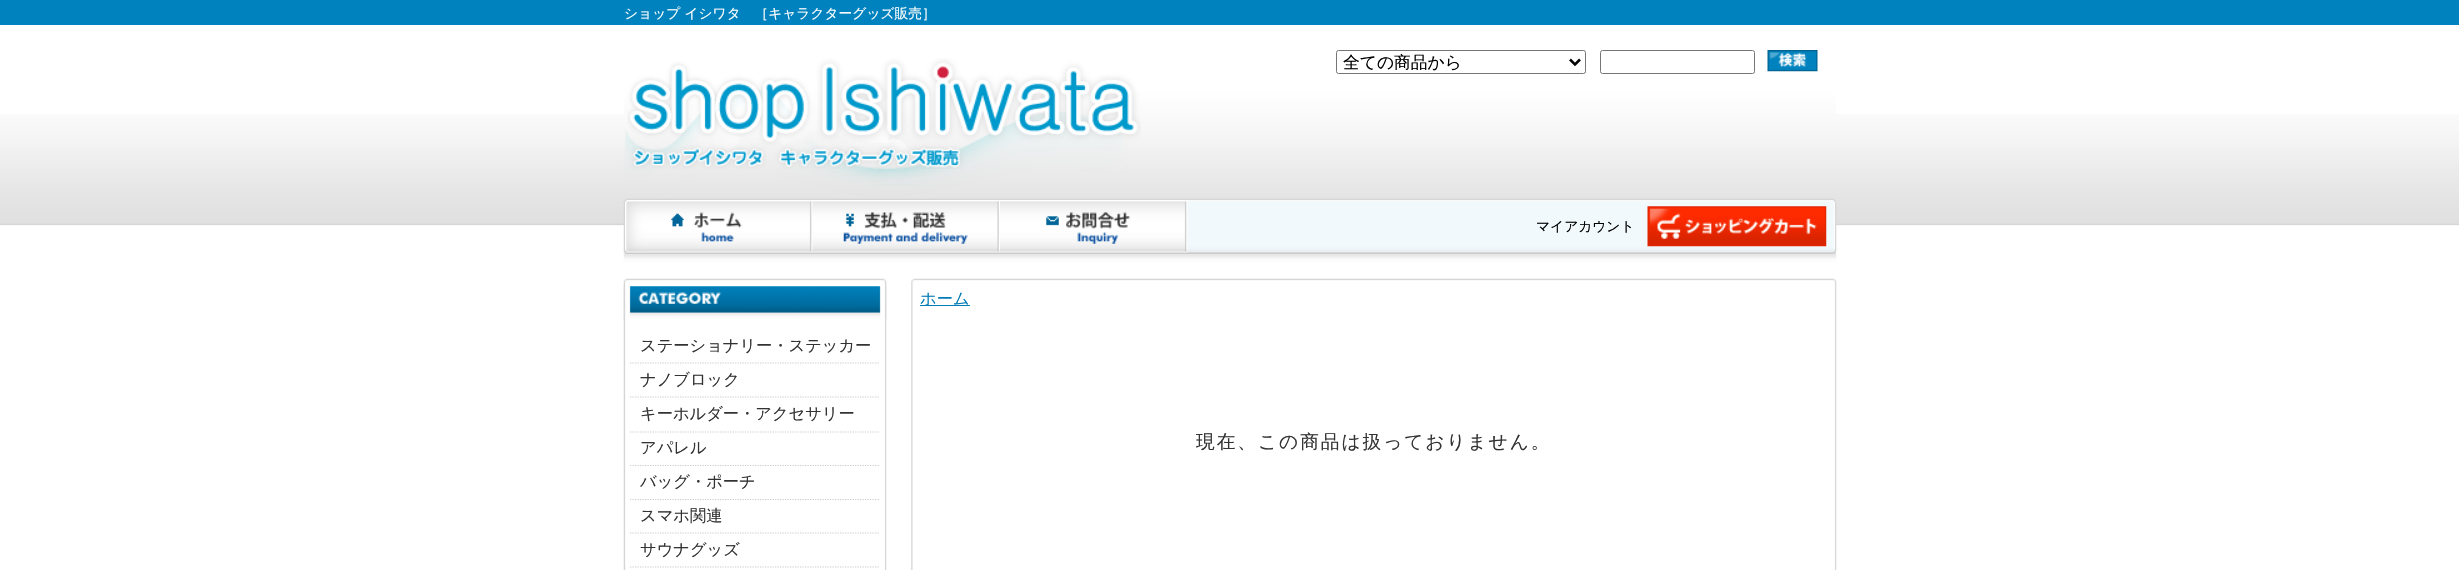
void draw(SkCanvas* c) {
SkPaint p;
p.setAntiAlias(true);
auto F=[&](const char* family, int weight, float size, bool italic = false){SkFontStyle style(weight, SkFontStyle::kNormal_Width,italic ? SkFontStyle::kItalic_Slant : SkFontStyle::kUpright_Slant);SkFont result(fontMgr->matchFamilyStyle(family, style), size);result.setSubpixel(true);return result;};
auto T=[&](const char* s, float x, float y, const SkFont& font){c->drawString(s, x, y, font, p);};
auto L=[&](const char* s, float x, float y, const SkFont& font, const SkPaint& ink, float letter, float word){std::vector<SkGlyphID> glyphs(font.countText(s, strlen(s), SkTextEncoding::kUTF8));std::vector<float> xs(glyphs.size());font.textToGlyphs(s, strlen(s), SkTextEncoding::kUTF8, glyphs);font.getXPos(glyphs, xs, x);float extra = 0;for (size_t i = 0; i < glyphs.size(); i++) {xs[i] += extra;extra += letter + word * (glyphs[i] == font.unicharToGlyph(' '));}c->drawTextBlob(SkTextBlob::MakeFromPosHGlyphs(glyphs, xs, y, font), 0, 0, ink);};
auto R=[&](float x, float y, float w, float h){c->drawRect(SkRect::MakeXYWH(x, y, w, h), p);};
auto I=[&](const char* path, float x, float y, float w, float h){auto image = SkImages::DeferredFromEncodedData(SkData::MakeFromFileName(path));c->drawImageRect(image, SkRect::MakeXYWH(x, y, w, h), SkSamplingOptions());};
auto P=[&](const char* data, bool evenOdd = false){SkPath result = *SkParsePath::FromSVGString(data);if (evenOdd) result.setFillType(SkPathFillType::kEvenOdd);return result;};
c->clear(0xffffffff);
I("1.png",0,114,2459,112);
p.setColor(0xff0082be);
R(0,0,2459,25);
auto f1 = F("WenQuanYi Zen Hei",500,13.75);
p.setColor(0xffffffff);
T("ショップ イシワタ　［キャラクターグッズ販売］",624,18,f1);
I("2.png",623,88,1214,199);
I("3.png",627,58,514,111);
p.setStroke(true);
p.setStrokeWidth(1);
p.setColor(0xff767676);
c->drawRoundRect(SkRect::MakeXYWH(1336.5,50.5,249,23),2,2,p);
p.setStrokeWidth(2.5);
p.setColor(0xff000000);
c->drawPath(P("M1570 59.5l5 5l5-5"),p);
auto f2 = F("WenQuanYi Zen Hei",500,16.75);
p.setStroke(false);
T("全ての商品から",1343,68,f2);
p.setStroke(true);
p.setStrokeWidth(1);
p.setColor(0xff767676);
c->drawRoundRect(SkRect::MakeXYWH(1600.5,50.5,154,23),2,2,p);
I("4.png",1767,50,51,22);
I("5.png",625,200,188,53);
I("6.png",812,200,188,53);
I("7.png",1000,200,188,53);
p.setStroke(false);
p.setColor(0xff000000);
T("マイアカウント",1536,231,f1);
I("8.png",1647,206,180,41);
I("9.png",623,286,264,284);
I("10.png",623,286,264,34);
p.setStroke(true);
p.setStrokeWidth(1.2);
p.setColor(0xffcccccc);
p.setPathEffect(SkDashPathEffect::Make({{1.25f,1.25f}}, 0));
c->drawPath(P("M630 363h250"),p);
p.setPathEffect(nullptr);
auto f3 = F("WenQuanYi Zen Hei",500,16.25);
p.setStroke(false);
p.setColor(0xff333333);
T("ステーショナリー・ステッカー",640,351,f3);
p.setStroke(true);
p.setColor(0xffcccccc);
p.setPathEffect(SkDashPathEffect::Make({{1.25f,1.25f}}, 0));
c->drawPath(P("M630 397h250"),p);
p.setPathEffect(nullptr);
p.setStroke(false);
p.setColor(0xff333333);
T("ナノブロック",640,385,f3);
p.setStroke(true);
p.setColor(0xffcccccc);
p.setPathEffect(SkDashPathEffect::Make({{1.25f,1.25f}}, 0));
c->drawPath(P("M630 432h250"),p);
p.setPathEffect(nullptr);
p.setStroke(false);
p.setColor(0xff333333);
T("キーホルダー・アクセサリー",640,419,f3);
p.setStroke(true);
p.setColor(0xffcccccc);
p.setPathEffect(SkDashPathEffect::Make({{1.25f,1.25f}}, 0));
c->drawPath(P("M630 465.5h250"),p);
p.setPathEffect(nullptr);
p.setStroke(false);
p.setColor(0xff333333);
T("アパレル",640,453,f3);
p.setStroke(true);
p.setColor(0xffcccccc);
p.setPathEffect(SkDashPathEffect::Make({{1.25f,1.25f}}, 0));
c->drawPath(P("M630 499.5h250"),p);
p.setPathEffect(nullptr);
p.setStroke(false);
p.setColor(0xff333333);
T("バッグ・ポーチ",640,487,f3);
p.setStroke(true);
p.setColor(0xffcccccc);
p.setPathEffect(SkDashPathEffect::Make({{1.25f,1.25f}}, 0));
c->drawPath(P("M630 533h250"),p);
p.setPathEffect(nullptr);
p.setStroke(false);
p.setColor(0xff333333);
T("スマホ関連",640,521,f3);
p.setStroke(true);
p.setColor(0xffcccccc);
p.setPathEffect(SkDashPathEffect::Make({{1.25f,1.25f}}, 0));
c->drawPath(P("M630 567h250"),p);
p.setPathEffect(nullptr);
p.setStroke(false);
p.setColor(0xff333333);
T("サウナグッズ",640,555,f3);
I("11.png",911,286,926,284);
p.setColor(0xff007cb6);
R(920,305,50,1);
T("ホーム",920,304,f3);
auto f4 = F("WenQuanYi Zen Hei",500,18.75);
p.setColor(0xff333333);
L("現在、この商品は扱っておりません。",1196,448,f4,p,1.9,0);
}
